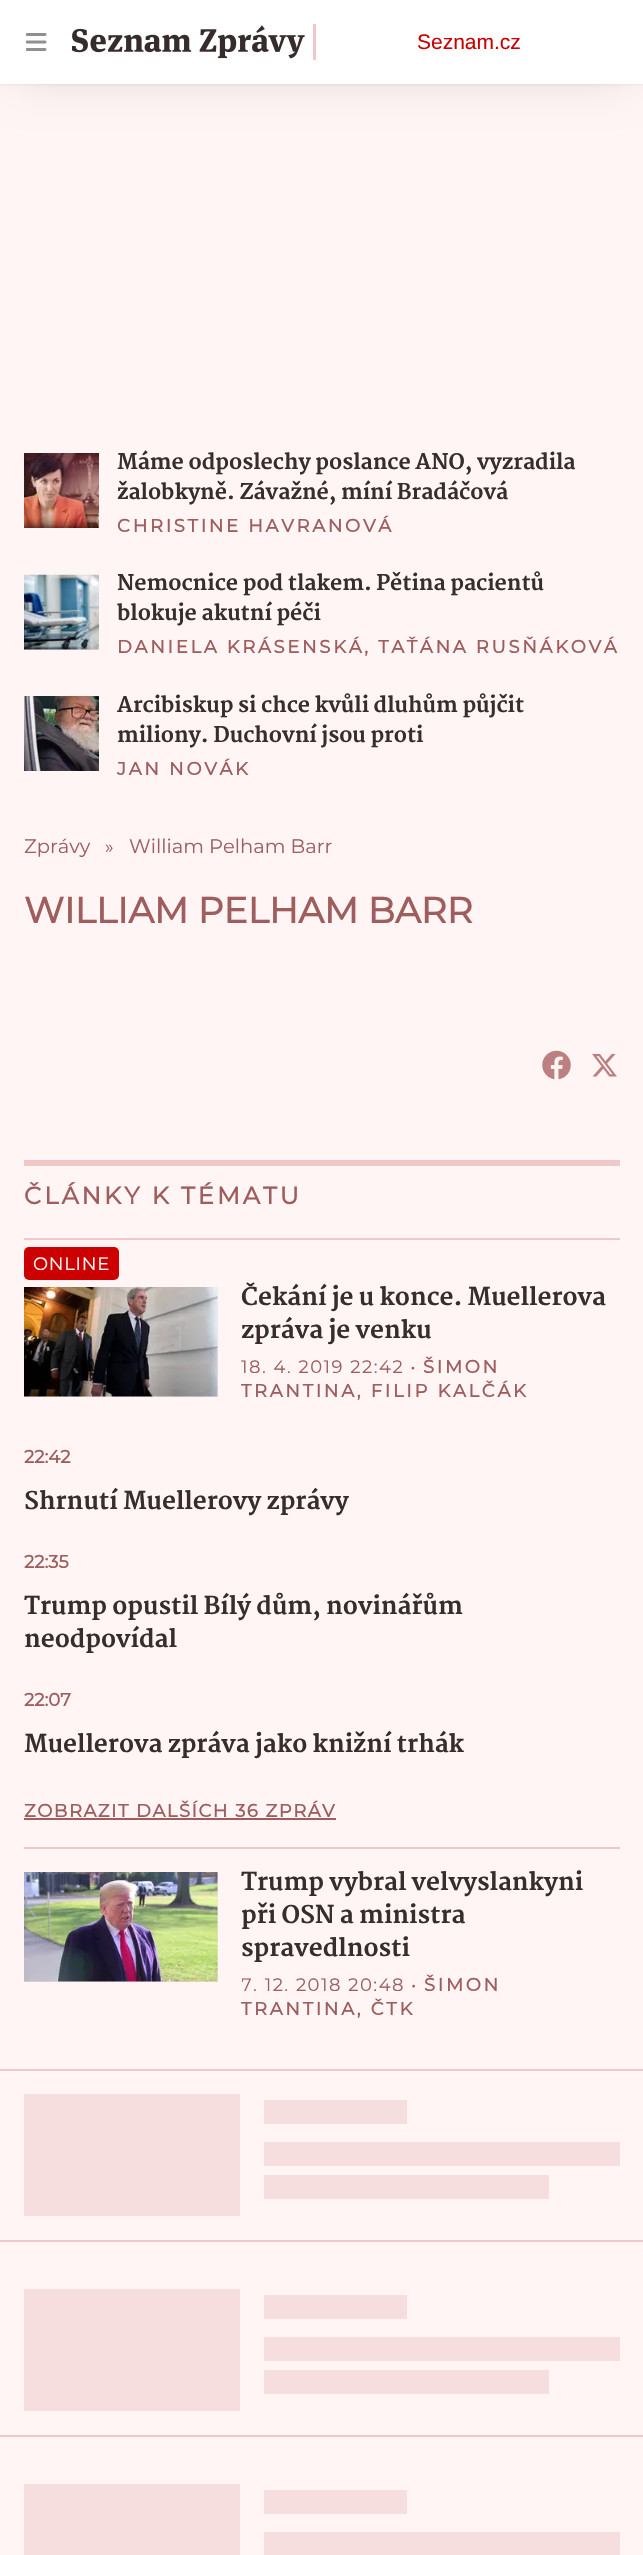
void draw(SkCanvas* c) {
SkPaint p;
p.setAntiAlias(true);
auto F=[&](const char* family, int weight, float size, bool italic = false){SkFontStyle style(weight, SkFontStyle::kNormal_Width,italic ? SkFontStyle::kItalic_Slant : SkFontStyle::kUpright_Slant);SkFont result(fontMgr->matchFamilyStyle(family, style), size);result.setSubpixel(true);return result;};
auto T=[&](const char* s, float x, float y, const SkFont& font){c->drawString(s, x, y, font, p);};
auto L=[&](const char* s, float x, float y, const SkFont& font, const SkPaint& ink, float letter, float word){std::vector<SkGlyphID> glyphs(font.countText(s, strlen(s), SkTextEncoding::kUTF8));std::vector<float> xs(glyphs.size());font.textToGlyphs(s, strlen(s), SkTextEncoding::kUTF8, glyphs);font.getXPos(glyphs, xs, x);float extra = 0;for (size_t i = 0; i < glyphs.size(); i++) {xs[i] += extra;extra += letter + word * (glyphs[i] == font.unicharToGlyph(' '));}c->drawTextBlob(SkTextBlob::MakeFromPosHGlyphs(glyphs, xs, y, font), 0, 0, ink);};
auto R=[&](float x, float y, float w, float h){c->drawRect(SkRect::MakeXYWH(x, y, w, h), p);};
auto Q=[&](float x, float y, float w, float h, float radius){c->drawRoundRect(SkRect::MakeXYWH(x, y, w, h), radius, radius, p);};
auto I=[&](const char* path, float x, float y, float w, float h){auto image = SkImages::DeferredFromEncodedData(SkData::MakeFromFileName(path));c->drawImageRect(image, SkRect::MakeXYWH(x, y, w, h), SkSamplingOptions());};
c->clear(0xfffff5f5);
p.setColor(0x1f000000);
p.setMaskFilter(SkMaskFilter::MakeBlur(kNormal_SkBlurStyle, 22.5));
c->drawRect(SkRect::MakeXYWH(18,30,608,48),p);
p.setMaskFilter(nullptr);
p.setColor(0x1a000000);
p.setMaskFilter(SkMaskFilter::MakeBlur(kNormal_SkBlurStyle, 1.5));
c->drawRect(SkRect::MakeXYWH(0,0,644,84),p);
p.setMaskFilter(nullptr);
p.setColor(0xffffffff);
R(0,0,643,84);
I("1.png",26,33,21,18);
I("2.png",72,24,244,36);
auto f1 = F("Liberation Sans",400,21);
p.setColor(0xffcc0000);
T("Seznam.cz",417,49,f1);
I("3.png",24,453,75,75);
auto f2 = F("Martel",800,21);
p.setColor(0xff382c2c);
T("Máme odposlechy poslance ANO, vyzradila",117,469,f2);
T("žalobkyně. Závažné, míní Bradáčová",117,499,f2);
auto f3 = F("Montserrat",700,18);
p.setColor(0xffa05d5d);
L("CHRISTINE HAVRANOVÁ",117,532,f3,p,2.7,0);
p.setColor(0xfff7dede);
R(24,649,75,1);
I("4.png",24,574,75,76);
p.setColor(0xff382c2c);
T("Nemocnice pod tlakem. Pětina pacientů",117,590,f2);
T("blokuje akutní péči",117,620,f2);
p.setColor(0xffa05d5d);
L("DANIELA KRÁSENSKÁ, TAŤÁNA RUSŇÁKOVÁ",117,653,f3,p,2.7,0);
I("5.png",24,696,75,75);
p.setColor(0xff382c2c);
T("Arcibiskup si chce kvůli dluhům půjčit",117,712,f2);
T("miliony. Duchovní jsou proti",117,742,f2);
p.setColor(0xffa05d5d);
L("JAN NOVÁK",117,775,f3,p,2.7,0);
auto f4 = F("Montserrat",400,19.5);
T("Zprávy",24,853,f4);
auto f5 = F("Montserrat",400,18);
T("»",105,853,f5);
T("William Pelham Barr",129,853,f4);
auto f6 = F("Montserrat",700,36);
T("WILLIAM PELHAM BARR",24,923,f6);
I("6.png",542,1050,29,30);
I("7.png",592,1053,25,24);
p.setColor(0xfff0c8c8);
R(24,1160,596,6);
auto f7 = F("Montserrat",700,24);
p.setColor(0xffa05d5d);
L("ČLÁNKY K TÉMATU",24,1204,f7,p,3,0);
p.setColor(0xfff0c8c8);
R(24,1238,596,2);
p.setColor(0xffcc0000);
Q(24,1247,95,33,5);
p.setColor(0xffffffff);
L("ONLINE",33,1270,f5,p,.75,0);
p.setColor(0xfff7dede);
R(24,1287,194,110);
I("8.png",24,1287,194,110);
auto f8 = F("Martel",800,24);
p.setColor(0xff382c2c);
T("Čekání je u konce. Muellerova",241,1305,f8);
T("zpráva je venku",241,1338,f8);
p.setColor(0xffa05d5d);
L("18. 4. 2019 22:42 •",241,1373,f5,p,1.5,0);
L("ŠIMON",423,1373,f3,p,2.7,0);
L("TRANTINA, FILIP KALČÁK",241,1397,f3,p,2.7,0);
T("22:42",24,1463,f3);
p.setColor(0xff382c2c);
T("Shrnutí Muellerovy zprávy",24,1509,f8);
p.setColor(0xffa05d5d);
T("22:35",24,1568,f3);
p.setColor(0xff382c2c);
T("Trump opustil Bílý dům, novinářům",24,1614,f8);
T("neodpovídal",24,1647,f8);
p.setColor(0xffa05d5d);
T("22:07",24,1706,f3);
p.setColor(0xff382c2c);
T("Muellerova zpráva jako knižní trhák",24,1752,f8);
p.setColor(0xffa05d5d);
L("ZOBRAZIT DALŠÍCH 36 ZPRÁV",24,1817,f3,p,1.5,0);
R(24,1818,312,2);
p.setColor(0xfff0c8c8);
R(24,1847,596,2);
p.setColor(0xfff7dede);
R(24,1872,194,110);
I("9.png",24,1872,194,110);
p.setColor(0xff382c2c);
T("Trump vybral velvyslankyni",241,1890,f8);
T("při OSN a ministra",241,1923,f8);
T("spravedlnosti",241,1956,f8);
c->save();
c->clipRect(SkRect::MakeXYWH(242,1973,378,48));
p.setColor(0xffa05d5d);
L("7. 12. 2018 20:48",241,1991,f5,p,1.5,0);
c->restore();
L("•",411,1991,f5,p,1.5,0);
L("ŠIMON",424,1991,f3,p,2.7,0);
L("TRANTINA, ČTK",241,2015,f3,p,2.7,0);
p.setColor(0xfff0c8c8);
R(0,2069,643,2);
R(0,2240,643,2);
p.setColor(0xfff7dede);
R(24,2094,216,122);
R(264,2100,143,24);
R(264,2142,356,24);
R(264,2175,285,24);
p.setColor(0xfff0c8c8);
R(0,2435,643,2);
p.setColor(0xfff7dede);
R(24,2289,216,122);
R(264,2295,143,24);
R(264,2337,356,24);
R(264,2370,285,24);
R(24,2484,216,71);
R(264,2490,143,24);
R(264,2532,356,23);
}
